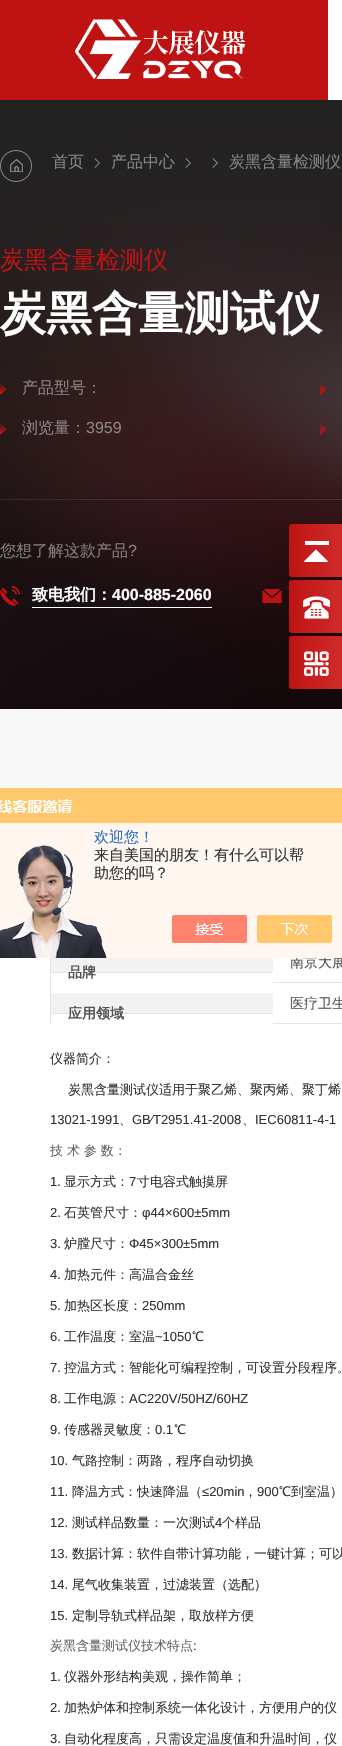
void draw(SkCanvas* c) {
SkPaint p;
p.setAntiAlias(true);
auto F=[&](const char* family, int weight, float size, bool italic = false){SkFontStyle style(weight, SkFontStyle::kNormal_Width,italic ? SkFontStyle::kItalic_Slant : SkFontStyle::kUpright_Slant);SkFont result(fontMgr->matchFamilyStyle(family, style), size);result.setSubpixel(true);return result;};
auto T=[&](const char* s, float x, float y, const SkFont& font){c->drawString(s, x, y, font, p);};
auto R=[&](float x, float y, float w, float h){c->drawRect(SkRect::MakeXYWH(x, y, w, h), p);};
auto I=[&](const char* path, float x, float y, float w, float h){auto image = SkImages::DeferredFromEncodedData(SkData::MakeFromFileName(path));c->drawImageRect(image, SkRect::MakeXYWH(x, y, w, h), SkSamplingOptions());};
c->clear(0xfff8f8f8);
p.setColor(0xffffffff);
R(328,0,14,100);
p.setColor(0xffbf1313);
R(0,0,328,100);
I("1.png",75,19,171,60);
I("2.png",0,100,342,609);
I("3.png",0,150,32,32);
auto f1 = F("WenQuanYi Zen Hei",500,16);
p.setColor(0xff868585);
T("首页",52,167,f1);
I("4.png",94,158,6,10);
T("产品中心",111,167,f1);
I("5.png",185,158,6,10);
I("5.png",212,158,6,10);
T("炭黑含量检测仪",229,167,f1);
auto f2 = F("WenQuanYi Zen Hei",500,24);
p.setColor(0xffbf1313);
T("炭黑含量检测仪",0,268,f2);
auto f3 = F("WenQuanYi Zen Hei",700,46);
p.setColor(0xffffffff);
T("炭黑含量测试仪",0,329,f3);
I("6.png",0,383,7,12);
p.setColor(0xff8c8282);
T("产品型号：",22,393,f1);
I("7.png",320,383,7,12);
I("8.png",0,423,7,12);
T("浏览量：",22,433,f1);
auto f4 = F("Liberation Sans",400,16);
T("3959",86,433,f4);
I("9.png",320,423,7,12);
p.setColor(0xff231615);
R(35,498,307,1);
p.setColor(0x1affffff);
R(0,499,342,1);
p.setColor(0xff847c7d);
T("您想了解这款产品",0,556,f1);
p.setColor(0xff8c8282);
T("?",128,556,f4);
I("10.png",0,586,20,20);
auto f5 = F("WenQuanYi Zen Hei",700,16);
p.setColor(0xffffffff);
T("致电我们：",32,600,f5);
auto f6 = F("Liberation Sans",700,16);
T("400-885-2060",112,600,f6);
R(32,607,180,1);
I("11.png",262,589,20,14);
I("12.png",289,524,53,53);
I("13.png",289,580,53,53);
I("14.png",289,636,53,53);
R(0,958,342,788);
auto f7 = F("WenQuanYi Zen Hei",500,14);
p.setColor(0xff555555);
T("南京大展",290,967,f7);
I("15.png",0,788,342,170);
auto f8 = F("WenQuanYi Zen Hei",500,15);
p.setColor(0xff2e6ec6);
T("欢迎您！",94,842,f8);
p.setColor(0xff333333);
T("来自美国的朋友！有什么可以帮",94,860,f8);
T("助您的吗？",94,878,f8);
p.setColor(0xffe6e5e5);
R(50,958,1,66);
R(273,982,69,1);
p.setColor(0xfff2f2f2);
R(51,958,222,14);
p.setColor(0xffe6e5e5);
R(51,972,222,1);
auto f9 = F("WenQuanYi Zen Hei",700,14);
p.setColor(0xff555555);
T("品牌",68,977,f9);
p.setColor(0xffe6e5e5);
R(273,1023,69,1);
p.setColor(0xff555555);
T("医疗卫生",290,1008,f7);
p.setColor(0xfff2f2f2);
R(51,993,222,20);
p.setColor(0xffe6e5e5);
R(51,1013,222,1);
p.setColor(0xff555555);
T("应用领域",68,1018,f9);
auto f10 = F("WenQuanYi Zen Hei",500,13);
p.setColor(0xff333333);
T("仪器简介：",50,1063,f10);
T("炭黑含量测试仪适用于聚乙烯、聚丙烯、聚丁烯",68,1094,f10);
auto f11 = F("Liberation Sans",400,13);
T("13021-1991",50,1124,f11);
T("、",119,1124,f10);
T("GB∕T2951.41-2008",132,1124,f11);
T("、",242,1124,f10);
T("IEC60811-4-1",255,1124,f11);
p.setColor(0xff666666);
T("技 术 参 数：",50,1155,f10);
p.setColor(0xff333333);
T("1.",50,1186,f11);
T("显示方式：",64,1186,f10);
T("7",129,1186,f11);
T("寸电容式触摸屏",137,1186,f10);
T("2.",50,1217,f11);
T("石英管尺寸：",64,1217,f10);
T("φ44×600±5mm",142,1217,f11);
T("3.",50,1248,f11);
T("炉膛尺寸：",64,1248,f10);
T("Φ45×300±5mm",129,1248,f11);
T("4.",50,1279,f11);
T("加热元件：高温合金丝",64,1279,f10);
T("5.",50,1310,f11);
T("加热区长度：",64,1310,f10);
T("250mm",142,1310,f11);
T("6.",50,1341,f11);
T("工作温度：室温",64,1341,f10);
T("~1050",155,1341,f11);
T("℃",192,1341,f10);
T("7.",50,1372,f11);
T("控温方式：智能化可编程控制，可设置分段程序。",64,1372,f10);
T("8.",50,1403,f11);
T("工作电源：",64,1403,f10);
T("AC220V/50HZ/60HZ",129,1403,f11);
T("9.",50,1434,f11);
T("传感器灵敏度：",64,1434,f10);
T("0.1",155,1434,f11);
T("℃",174,1434,f10);
T("10.",50,1465,f11);
T("气路控制：两路，程序自动切换",72,1465,f10);
T("11.",50,1496,f11);
T("降温方式：快速降温（",72,1496,f10);
T("≤20min",202,1496,f11);
T("，",244,1496,f10);
T("900",257,1496,f11);
T("℃到室温）",279,1496,f10);
T("12.",50,1527,f11);
T("测试样品数量：一次测试",72,1527,f10);
T("4",215,1527,f11);
T("个样品",222,1527,f10);
T("13.",50,1558,f11);
T("数据计算：软件自带计算功能，一键计算；可以",72,1558,f10);
T("14.",50,1589,f11);
T("尾气收集装置，过滤装置（选配）",72,1589,f10);
T("15.",50,1620,f11);
T("定制导轨式样品架，取放样方便",72,1620,f10);
p.setColor(0xff666666);
T("炭黑含量测试仪技术特点",50,1650,f10);
p.setColor(0xff333333);
T(":",193,1650,f11);
T("1.",50,1681,f11);
T("仪器外形结构美观，操作简单；",64,1681,f10);
T("2.",50,1712,f11);
T("加热炉体和控制系统一体化设计，方便用户的仪",64,1712,f10);
T("3.",50,1743,f11);
T("自动化程度高，只需设定温度值和升温时间，仪",64,1743,f10);
}
